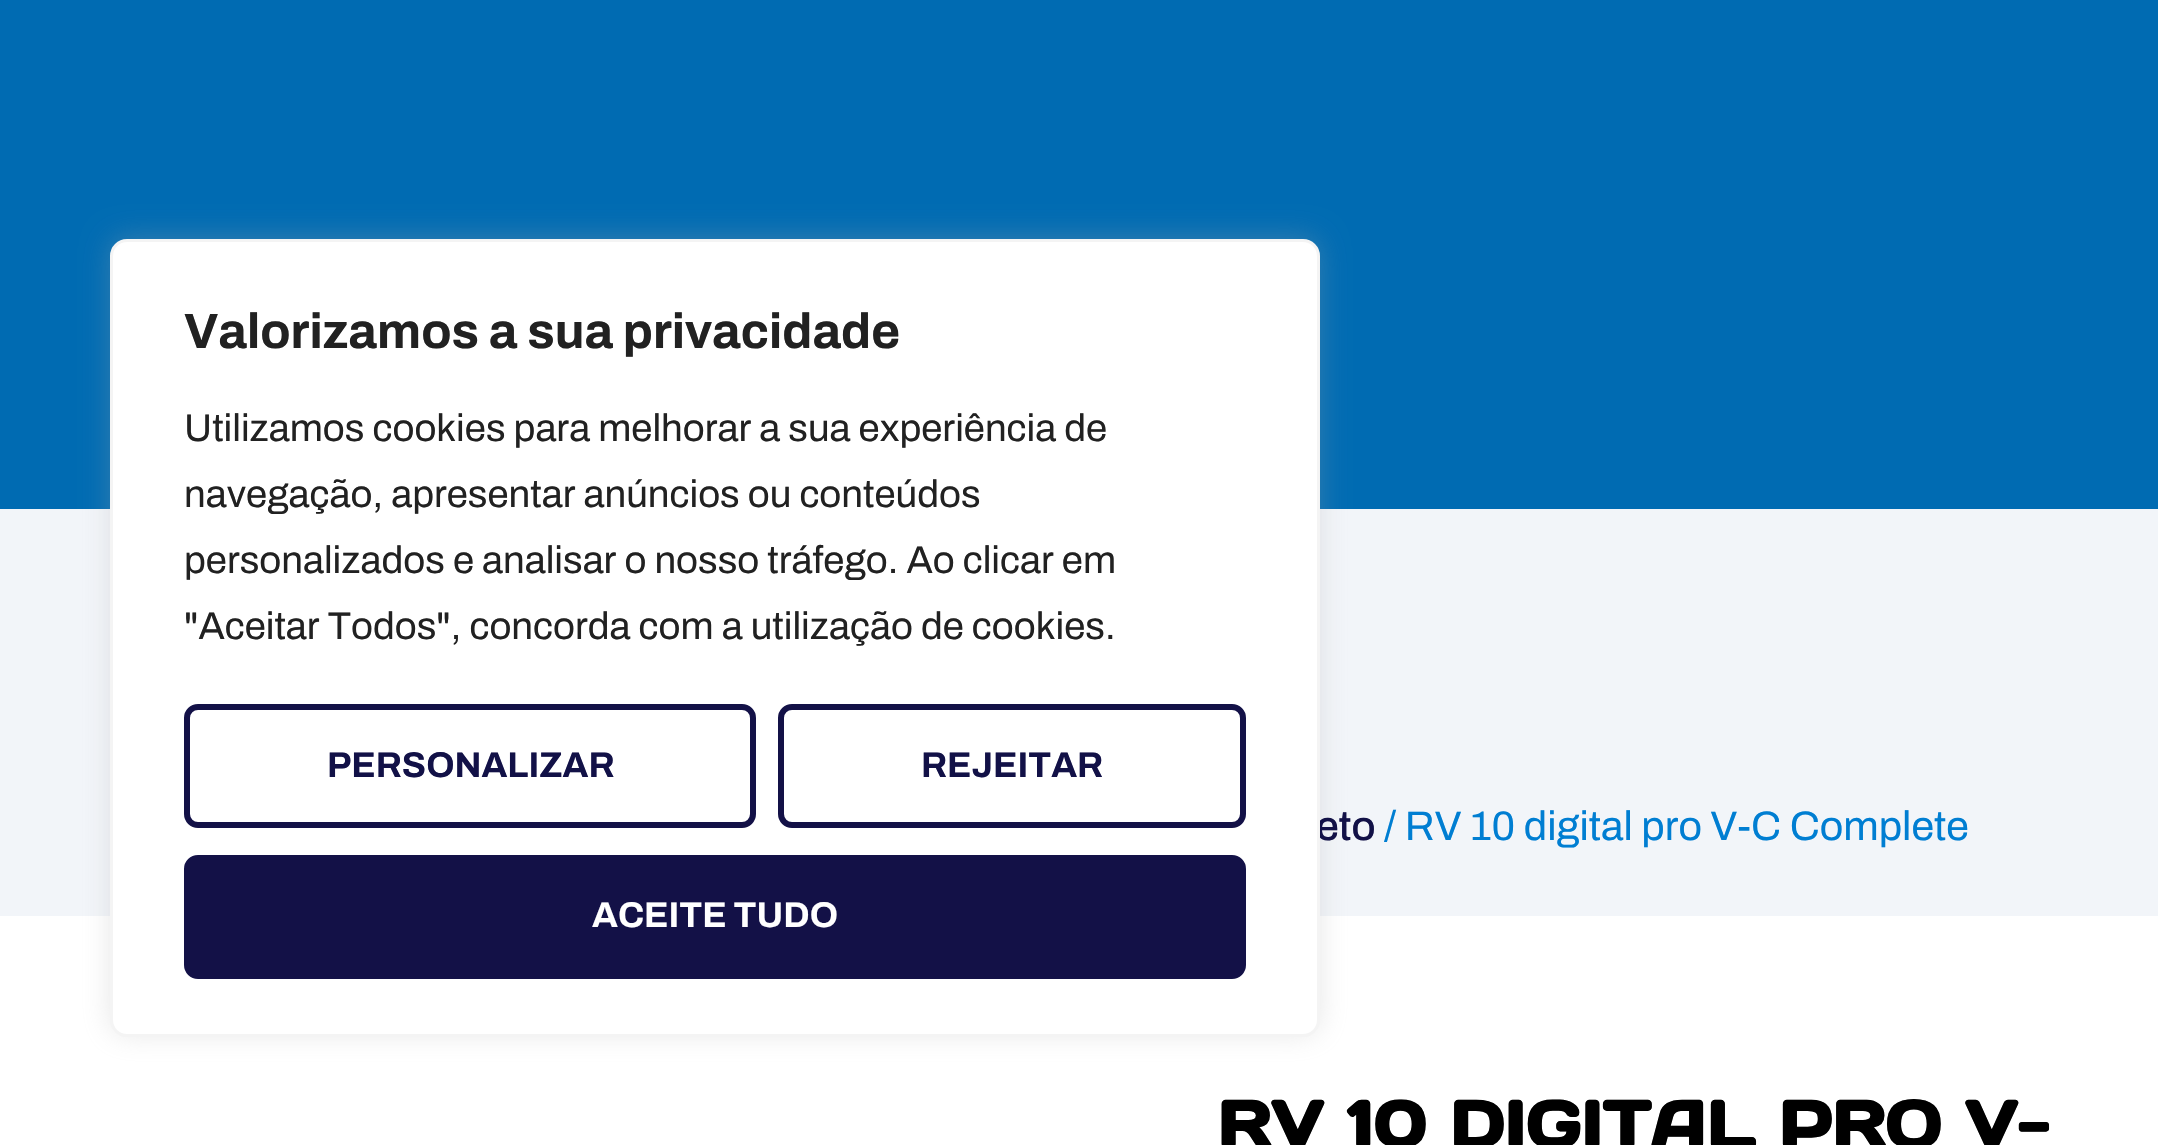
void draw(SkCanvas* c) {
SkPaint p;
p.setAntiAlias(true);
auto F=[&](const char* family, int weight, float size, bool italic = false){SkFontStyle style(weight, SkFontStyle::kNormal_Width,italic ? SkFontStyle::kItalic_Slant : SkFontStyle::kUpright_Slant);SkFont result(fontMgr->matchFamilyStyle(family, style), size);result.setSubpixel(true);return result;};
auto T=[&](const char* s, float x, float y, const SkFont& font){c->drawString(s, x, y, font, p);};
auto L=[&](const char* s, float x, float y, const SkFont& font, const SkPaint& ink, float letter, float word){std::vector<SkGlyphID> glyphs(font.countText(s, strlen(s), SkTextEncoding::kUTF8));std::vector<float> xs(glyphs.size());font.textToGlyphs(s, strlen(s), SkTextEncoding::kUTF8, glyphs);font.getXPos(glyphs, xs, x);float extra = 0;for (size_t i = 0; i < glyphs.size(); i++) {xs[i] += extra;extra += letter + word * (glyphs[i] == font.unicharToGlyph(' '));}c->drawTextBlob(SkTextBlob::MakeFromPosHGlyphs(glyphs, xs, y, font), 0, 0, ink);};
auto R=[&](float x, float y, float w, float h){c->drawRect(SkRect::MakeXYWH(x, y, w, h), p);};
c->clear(0xffffffff);
p.setColor(0xff006bb2);
R(0,0,2158,509);
p.setColor(0xfff2f5f9);
R(0,509,2158,407);
p.setColor(0x4dacabab);
p.setMaskFilter(SkMaskFilter::MakeBlur(kNormal_SkBlurStyle, 14));
c->drawRoundRect(SkRect::MakeXYWH(110,237,1210,797),17,17,p);
p.setMaskFilter(nullptr);
auto f1 = F("Archivo",500,41.25);
p.setColor(0xff121147);
T("eto",1316,840,f1);
p.setColor(0xffffffff);
c->drawRoundRect(SkRect::MakeXYWH(111.5,240.5,1207,795),15.5,15.5,p);
p.setStroke(true);
p.setStrokeWidth(3);
p.setColor(0xfff4f4f4);
c->drawRoundRect(SkRect::MakeXYWH(111.5,240.5,1207,795),15.5,15.5,p);
auto f2 = F("Archivo",700,49.5);
p.setStroke(false);
p.setColor(0xff212121);
T("Valorizamos a sua privacidade",184,348,f2);
auto f3 = F("Archivo",400,38.5);
T("Utilizamos cookies para melhorar a sua experiência de",184,441,f3);
T("navegação, apresentar anúncios ou conteúdos",184,507,f3);
T("personalizados e analisar o nosso tráfego. Ao clicar em",184,573,f3);
T("\"Aceitar Todos\", concorda com a utilização de cookies.",184,639,f3);
p.setStroke(true);
p.setStrokeWidth(6);
p.setColor(0xff131147);
c->drawRoundRect(SkRect::MakeXYWH(187,707,566,118),11,11,p);
auto f4 = F("Archivo",700,35.75);
p.setStroke(false);
p.setColor(0xff121147);
T("PERSONALIZAR",327,777,f4);
p.setStroke(true);
p.setColor(0xff131147);
c->drawRoundRect(SkRect::MakeXYWH(781,707,462,118),11,11,p);
p.setStroke(false);
p.setColor(0xff121147);
T("REJEITAR",921,777,f4);
p.setColor(0xff131147);
c->drawRoundRect(SkRect::MakeXYWH(187,858,1056,118),11,11,p);
p.setStroke(true);
c->drawRoundRect(SkRect::MakeXYWH(187,858,1056,118),11,11,p);
p.setStroke(false);
p.setColor(0xffffffff);
T("ACEITE TUDO",592,927,f4);
auto f5 = F("Archivo",400,41.25);
p.setColor(0xff007ed2);
T("/ RV 10 digital pro V-C Complete",1384,840,f5);
auto f6 = F("Days One",700,66);
p.setColor(0xff000000);
L("RV 10 DIGITAL PRO V-",1217,1148,f6,p,.25,0);
}
